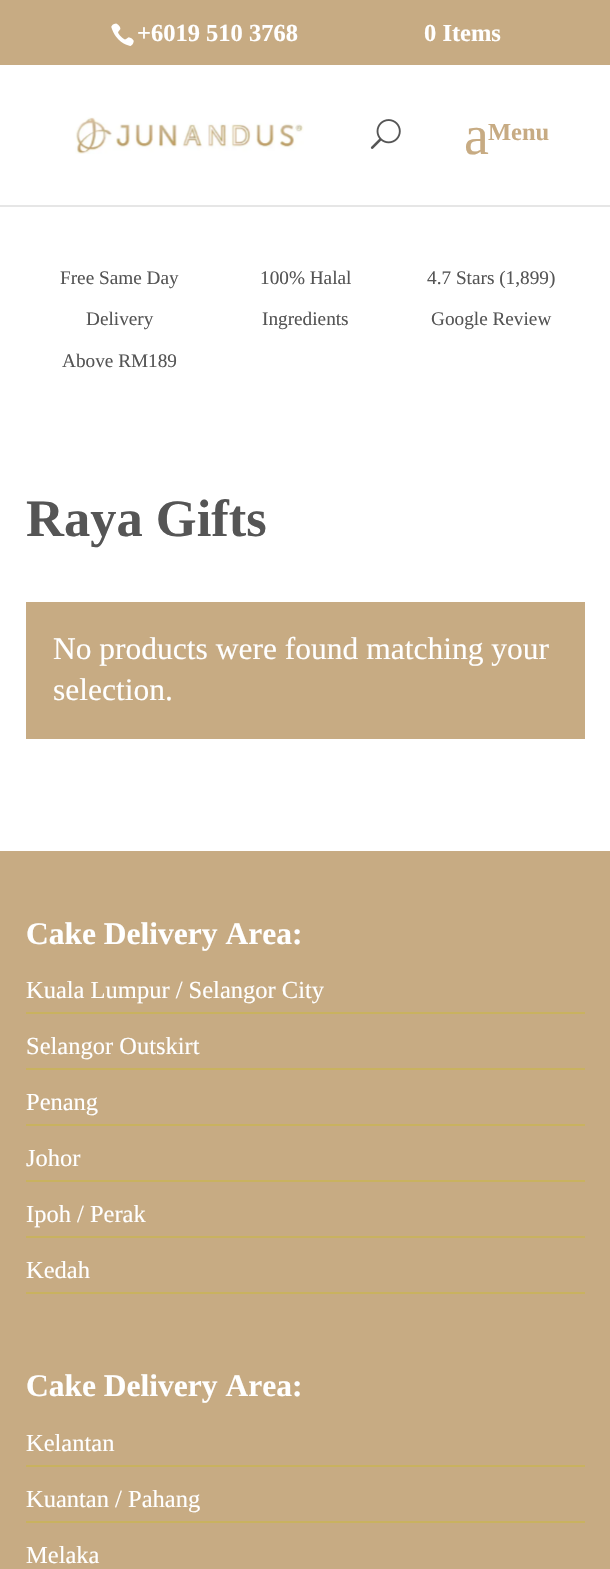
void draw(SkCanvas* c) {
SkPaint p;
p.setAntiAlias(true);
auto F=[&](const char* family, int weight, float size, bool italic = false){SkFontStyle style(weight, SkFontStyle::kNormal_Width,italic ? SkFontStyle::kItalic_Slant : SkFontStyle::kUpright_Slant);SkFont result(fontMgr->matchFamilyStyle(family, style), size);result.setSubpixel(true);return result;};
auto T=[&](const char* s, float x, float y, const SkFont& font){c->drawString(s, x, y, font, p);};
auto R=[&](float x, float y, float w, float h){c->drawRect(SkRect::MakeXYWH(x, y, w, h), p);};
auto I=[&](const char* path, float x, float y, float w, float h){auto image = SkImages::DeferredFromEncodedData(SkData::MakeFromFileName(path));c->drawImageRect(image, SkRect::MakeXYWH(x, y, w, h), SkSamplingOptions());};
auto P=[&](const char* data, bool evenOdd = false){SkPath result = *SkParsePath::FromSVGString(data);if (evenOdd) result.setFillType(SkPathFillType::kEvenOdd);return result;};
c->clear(0xffffffff);
p.setColor(0xffc7ab83);
R(0,0,610,65);
I("1.png",111,23,23,23);
auto f1 = F("Liberation Serif",700,24.5);
p.setColor(0xffffffff);
T("+6019 510 3768",137,41,f1);
T("0 Items",424,41,f1);
p.setColor(0xffe6e6e6);
c->drawPath(P("M0 205v2h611v-140v138z"),p);
I("2.png",75,117,229,37);
I("3.png",370,119,31,30);
auto f2 = F("Liberation Serif",400,56);
p.setColor(0xffc7ab83);
T("a",464,154,f2);
T("Menu",488,140,f1);
auto f3 = F("Liberation Serif",400,19.25);
p.setColor(0xff555555);
T("Free Same Day",60,284,f3);
T("Delivery",86,325,f3);
T("Above RM189",62,367,f3);
T("100% Halal",260,284,f3);
T("Ingredients",262,325,f3);
T("4.7 Stars (1,899)",427,284,f3);
T("Google Review",431,325,f3);
auto f4 = F("Liberation Serif",700,52.5);
T("Raya Gifts",26,536,f4);
p.setColor(0xffc7ab83);
R(26,602,559,137);
auto f5 = F("Liberation Serif",400,31.5);
p.setColor(0xffffffff);
T("No products were found matching your",53,659,f5);
T("selection.",53,700,f5);
p.setColor(0xffc7ab83);
R(0,851,610,718);
auto f6 = F("Liberation Serif",700,31.5);
p.setColor(0xffffffff);
T("Cake Delivery Area:",26,944,f6);
p.setColor(0xffc9b25f);
R(26,1012,559,2);
auto f7 = F("Liberation Serif",400,24.5);
p.setColor(0xffffffff);
T("Kuala Lumpur / Selangor City",26,998,f7);
p.setColor(0xffc9b25f);
R(26,1068,559,2);
p.setColor(0xffffffff);
T("Selangor Outskirt",26,1054,f7);
p.setColor(0xffc9b25f);
R(26,1124,559,2);
p.setColor(0xffffffff);
T("Penang",26,1110,f7);
p.setColor(0xffc9b25f);
R(26,1180,559,2);
p.setColor(0xffffffff);
T("Johor",26,1166,f7);
p.setColor(0xffc9b25f);
R(26,1236,559,2);
p.setColor(0xffffffff);
T("Ipoh / Perak",26,1222,f7);
p.setColor(0xffc9b25f);
R(26,1292,559,2);
p.setColor(0xffffffff);
T("Kedah",26,1278,f7);
T("Cake Delivery Area:",26,1396,f6);
p.setColor(0xffc9b25f);
R(26,1465,559,2);
p.setColor(0xffffffff);
T("Kelantan",26,1451,f7);
p.setColor(0xffc9b25f);
R(26,1521,559,2);
p.setColor(0xffffffff);
T("Kuantan / Pahang",26,1507,f7);
T("Melaka",26,1563,f7);
}
